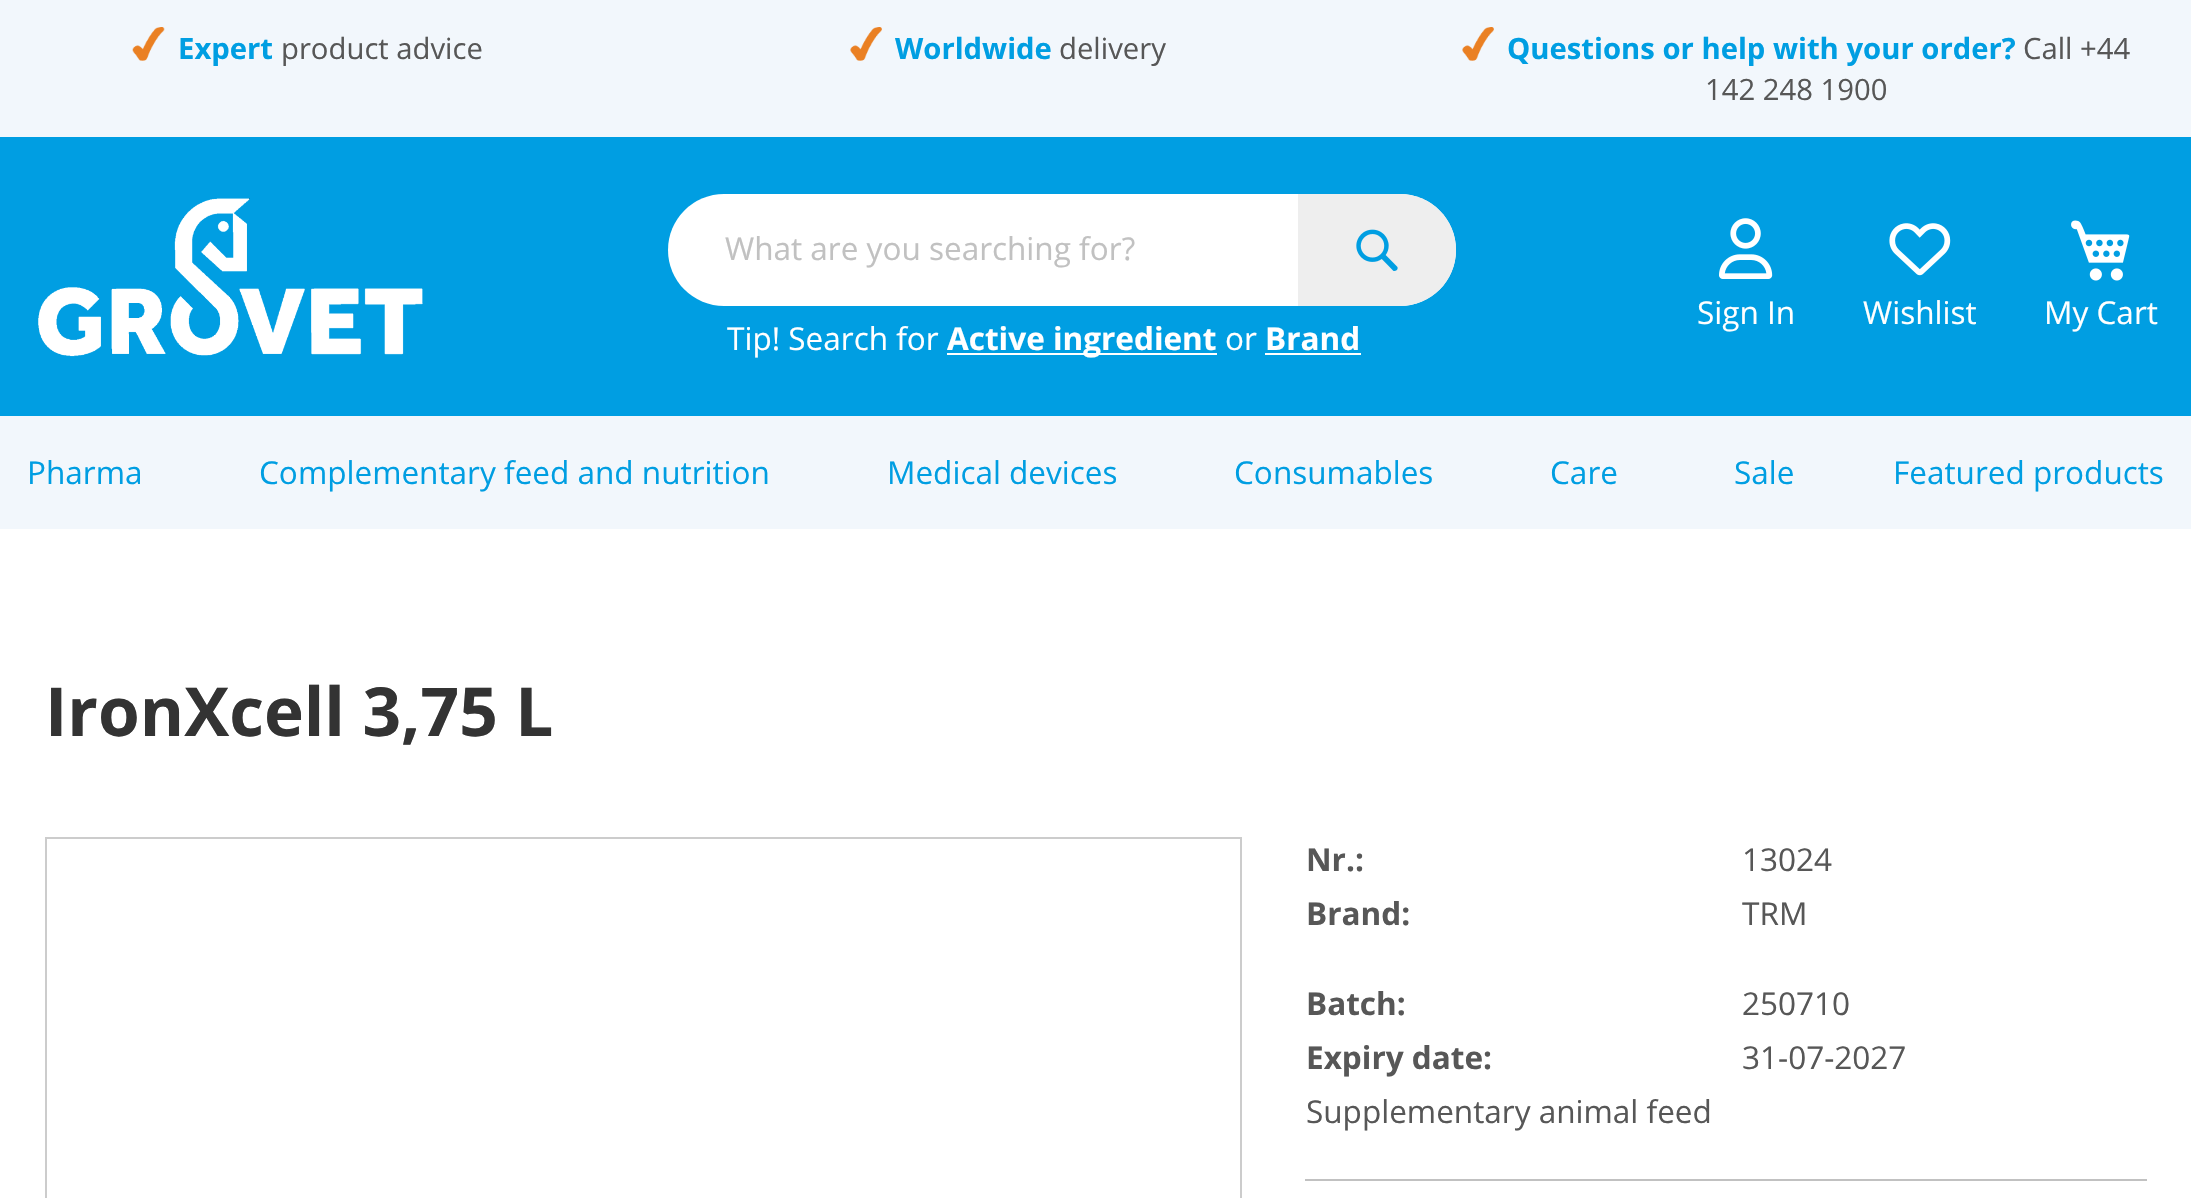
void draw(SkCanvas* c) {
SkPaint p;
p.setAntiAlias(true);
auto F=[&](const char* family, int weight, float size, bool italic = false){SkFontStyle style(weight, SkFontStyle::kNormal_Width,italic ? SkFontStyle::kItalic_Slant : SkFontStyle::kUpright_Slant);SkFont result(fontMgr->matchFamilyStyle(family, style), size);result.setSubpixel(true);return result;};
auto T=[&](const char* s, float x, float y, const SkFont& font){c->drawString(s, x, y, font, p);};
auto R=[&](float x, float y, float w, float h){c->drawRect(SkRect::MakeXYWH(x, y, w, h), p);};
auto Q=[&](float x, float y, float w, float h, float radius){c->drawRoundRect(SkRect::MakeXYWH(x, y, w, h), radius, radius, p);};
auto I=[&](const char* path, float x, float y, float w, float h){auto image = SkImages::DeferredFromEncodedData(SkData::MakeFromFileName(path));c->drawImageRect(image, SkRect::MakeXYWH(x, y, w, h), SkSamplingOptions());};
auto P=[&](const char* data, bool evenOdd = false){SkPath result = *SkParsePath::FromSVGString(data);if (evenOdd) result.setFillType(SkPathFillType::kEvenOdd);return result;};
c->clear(0xffffffff);
p.setColor(0xff009ee2);
R(0,137,2191,279);
p.setColor(0xfff2f7fc);
R(0,0,2191,137);
I("1.png",132,27,33,34);
auto f1 = F("Open Sans",700,29.25);
p.setColor(0xff009ee2);
T("Expert",178,59,f1);
auto f2 = F("Open Sans",400,29.25);
p.setColor(0xff575757);
T("product advice",281,59,f2);
I("2.png",850,27,32,34);
p.setColor(0xff009ee2);
T("Worldwide",895,59,f1);
p.setColor(0xff575757);
T("delivery",1059,59,f2);
I("3.png",1462,27,32,34);
p.setColor(0xff009ee2);
T("Questions or help with your order?",1507,59,f1);
p.setColor(0xff575757);
T("Call +44",2023,59,f2);
T("142 248 1900",1705,100,f2);
I("4.png",38,198,385,159);
p.setColor(0xffffffff);
Q(668,194,788,112,56);
auto f3 = F("Open Sans",400,31.5);
p.setColor(0xffc1c1c1);
T("What are you searching for?",725,260,f3);
p.setColor(0xffeeeeee);
c->drawPath(P("M1298 194h102c31 0 56 25 56 56c0 31-25 56-56 56h-102z"),p);
I("5.png",1356,229,42,42);
p.setColor(0xffffffff);
T("Tip! Search for",727,350,f3);
R(947,353,270,2);
auto f4 = F("Open Sans",700,31.5);
T("Active ingredient",947,350,f4);
T("or",1225,350,f3);
T("Brand",1265,350,f4);
R(1265,353,96,2);
I("6.png",1719,218,54,61);
T("Sign In",1697,324,f3);
I("7.png",1889,223,62,53);
T("Wishlist",1863,324,f3);
I("8.png",2071,220,59,61);
T("My Cart",2044,324,f3);
p.setColor(0xfff2f7fc);
R(0,416,2191,113);
p.setColor(0xff009ee2);
T("Pharma",27,484,f3);
T("Complementary feed and nutrition",259,484,f3);
T("Medical devices",887,484,f3);
T("Consumables",1234,484,f3);
T("Care",1550,484,f3);
T("Sale",1734,484,f3);
T("Featured products",1893,484,f3);
auto f5 = F("Open Sans",700,67.5);
p.setColor(0xff333333);
T("IronXcell 3,75 L",45,736,f5);
p.setStroke(true);
p.setStrokeWidth(2);
p.setColor(0xffcccccc);
c->drawRect(SkRect::MakeXYWH(46,838,1195,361),p);
p.setStroke(false);
p.setColor(0xffc1c1c1);
R(1305,1179,842,2);
p.setColor(0xff575757);
T("Nr.:",1306,871,f4);
T("13024",1742,871,f3);
T("Brand:",1306,925,f4);
T("TRM",1742,925,f3);
T("Batch:",1306,1015,f4);
T("250710",1742,1015,f3);
T("Expiry date:",1306,1069,f4);
T("31-07-2027",1742,1069,f3);
T("Supplementary animal feed",1306,1123,f3);
}
